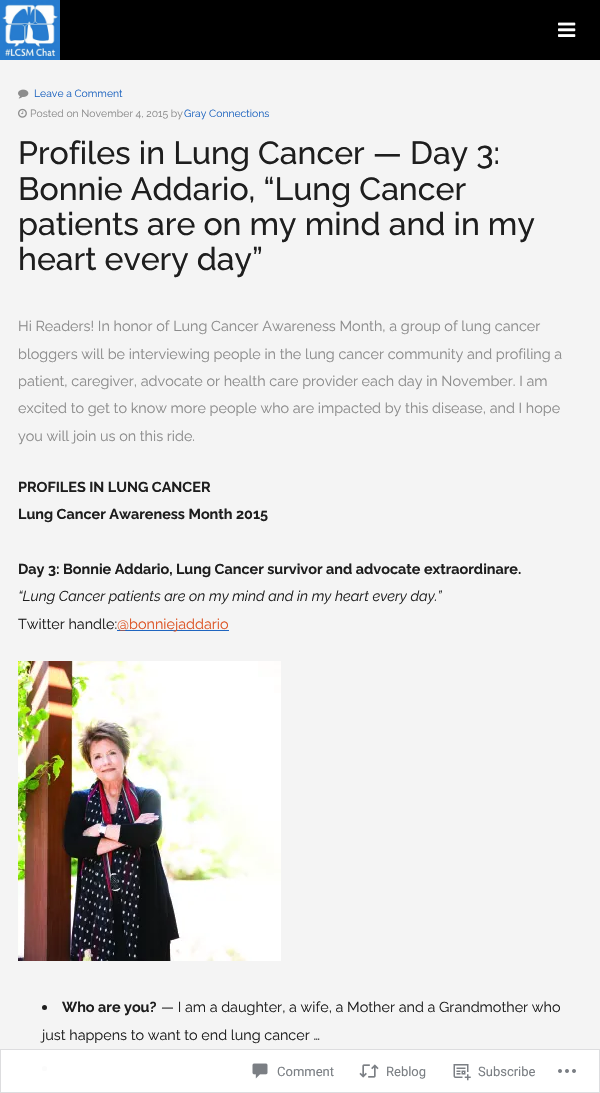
void draw(SkCanvas* c) {
SkPaint p;
p.setAntiAlias(true);
auto F=[&](const char* family, int weight, float size, bool italic = false){SkFontStyle style(weight, SkFontStyle::kNormal_Width,italic ? SkFontStyle::kItalic_Slant : SkFontStyle::kUpright_Slant);SkFont result(fontMgr->matchFamilyStyle(family, style), size);result.setSubpixel(true);return result;};
auto T=[&](const char* s, float x, float y, const SkFont& font){c->drawString(s, x, y, font, p);};
auto R=[&](float x, float y, float w, float h){c->drawRect(SkRect::MakeXYWH(x, y, w, h), p);};
auto I=[&](const char* path, float x, float y, float w, float h){auto image = SkImages::DeferredFromEncodedData(SkData::MakeFromFileName(path));c->drawImageRect(image, SkRect::MakeXYWH(x, y, w, h), SkSamplingOptions());};
c->clear(0xfff4f4f4);
p.setColor(0xffffffff);
R(0,1049,600,44);
p.setColor(0xff000000);
R(60,0,540,60);
I("1.png",0,0,60,60);
I("2.png",558,22,18,15);
I("3.png",18,89,11,10);
auto f1 = F("Raleway",400,10.4);
p.setColor(0xff1f65c0);
T("Leave a Comment",34,97,f1);
I("4.png",18,108,9,10);
p.setColor(0xff8c8c8c);
T("Posted on November 4, 2015 by",30,117,f1);
p.setColor(0xff1f65c0);
T("Gray Connections",184,117,f1);
auto f2 = F("Raleway",500,32);
p.setColor(0xff1e1e1e);
T("Profiles in Lung Cancer — Day 3:",18,164,f2);
T("Bonnie Addario, “Lung Cancer",18,200,f2);
T("patients are on my mind and in my",18,235,f2);
T("heart every day”",18,270,f2);
auto f3 = F("Raleway",400,14.4);
p.setColor(0xff8c8c8c);
T("Hi Readers! In honor of Lung Cancer Awareness Month, a group of lung cancer",18,331,f3);
T("bloggers will be interviewing people in the lung cancer community and profiling a",18,359,f3);
T("patient, caregiver, advocate or health care provider each day in November. I am",18,386,f3);
T("excited to get to know more people who are impacted by this disease, and I hope",18,413,f3);
T("you will join us on this ride.",18,441,f3);
auto f4 = F("Raleway",700,14.4);
p.setColor(0xff1e1e1e);
T("PROFILES IN LUNG CANCER",18,492,f4);
T("Lung Cancer Awareness Month 2015",18,519,f4);
T("Day 3: Bonnie Addario, Lung Cancer survivor and advocate extraordinare.",18,574,f4);
auto f5 = F("Raleway",400,14.4,true);
T("“Lung Cancer patients are on my mind and in my heart every day.”",18,601,f5);
T("Twitter handle:",18,629,f3);
p.setColor(0xff1f65c0);
R(117,630,112,1);
p.setColor(0xffdd5424);
T("@bonniejaddario",117,629,f3);
I("5.png",18,661,263,300);
p.setColor(0xff1e1e1e);
c->drawCircle(44.5,1007.5,2.5,p);
T("Who are you?",62,1012,f4);
T("— I am a daughter, a wife, a Mother and a Grandmother who",161,1012,f3);
T("just happens to want to end lung cancer …",42,1040,f3);
p.setColor(0xfffbfbfb);
c->drawCircle(44.5,1068.5,2.5,p);
p.setStroke(true);
p.setStrokeWidth(1);
p.setColor(0xfadcdcde);
c->drawRect(SkRect::MakeXYWH(.5,1049.5,599,43),p);
I("6.png",252,1063,16,16);
auto f6 = F("Roboto",400,13);
p.setStroke(false);
p.setColor(0xff7b7f84);
T("Comment",277,1076,f6);
I("7.png",359,1064,20,14);
T("Reblog",386,1076,f6);
I("8.png",453,1064,18,17);
T("Subscribe",478,1076,f6);
I("9.png",558,1069,18,4);
}
